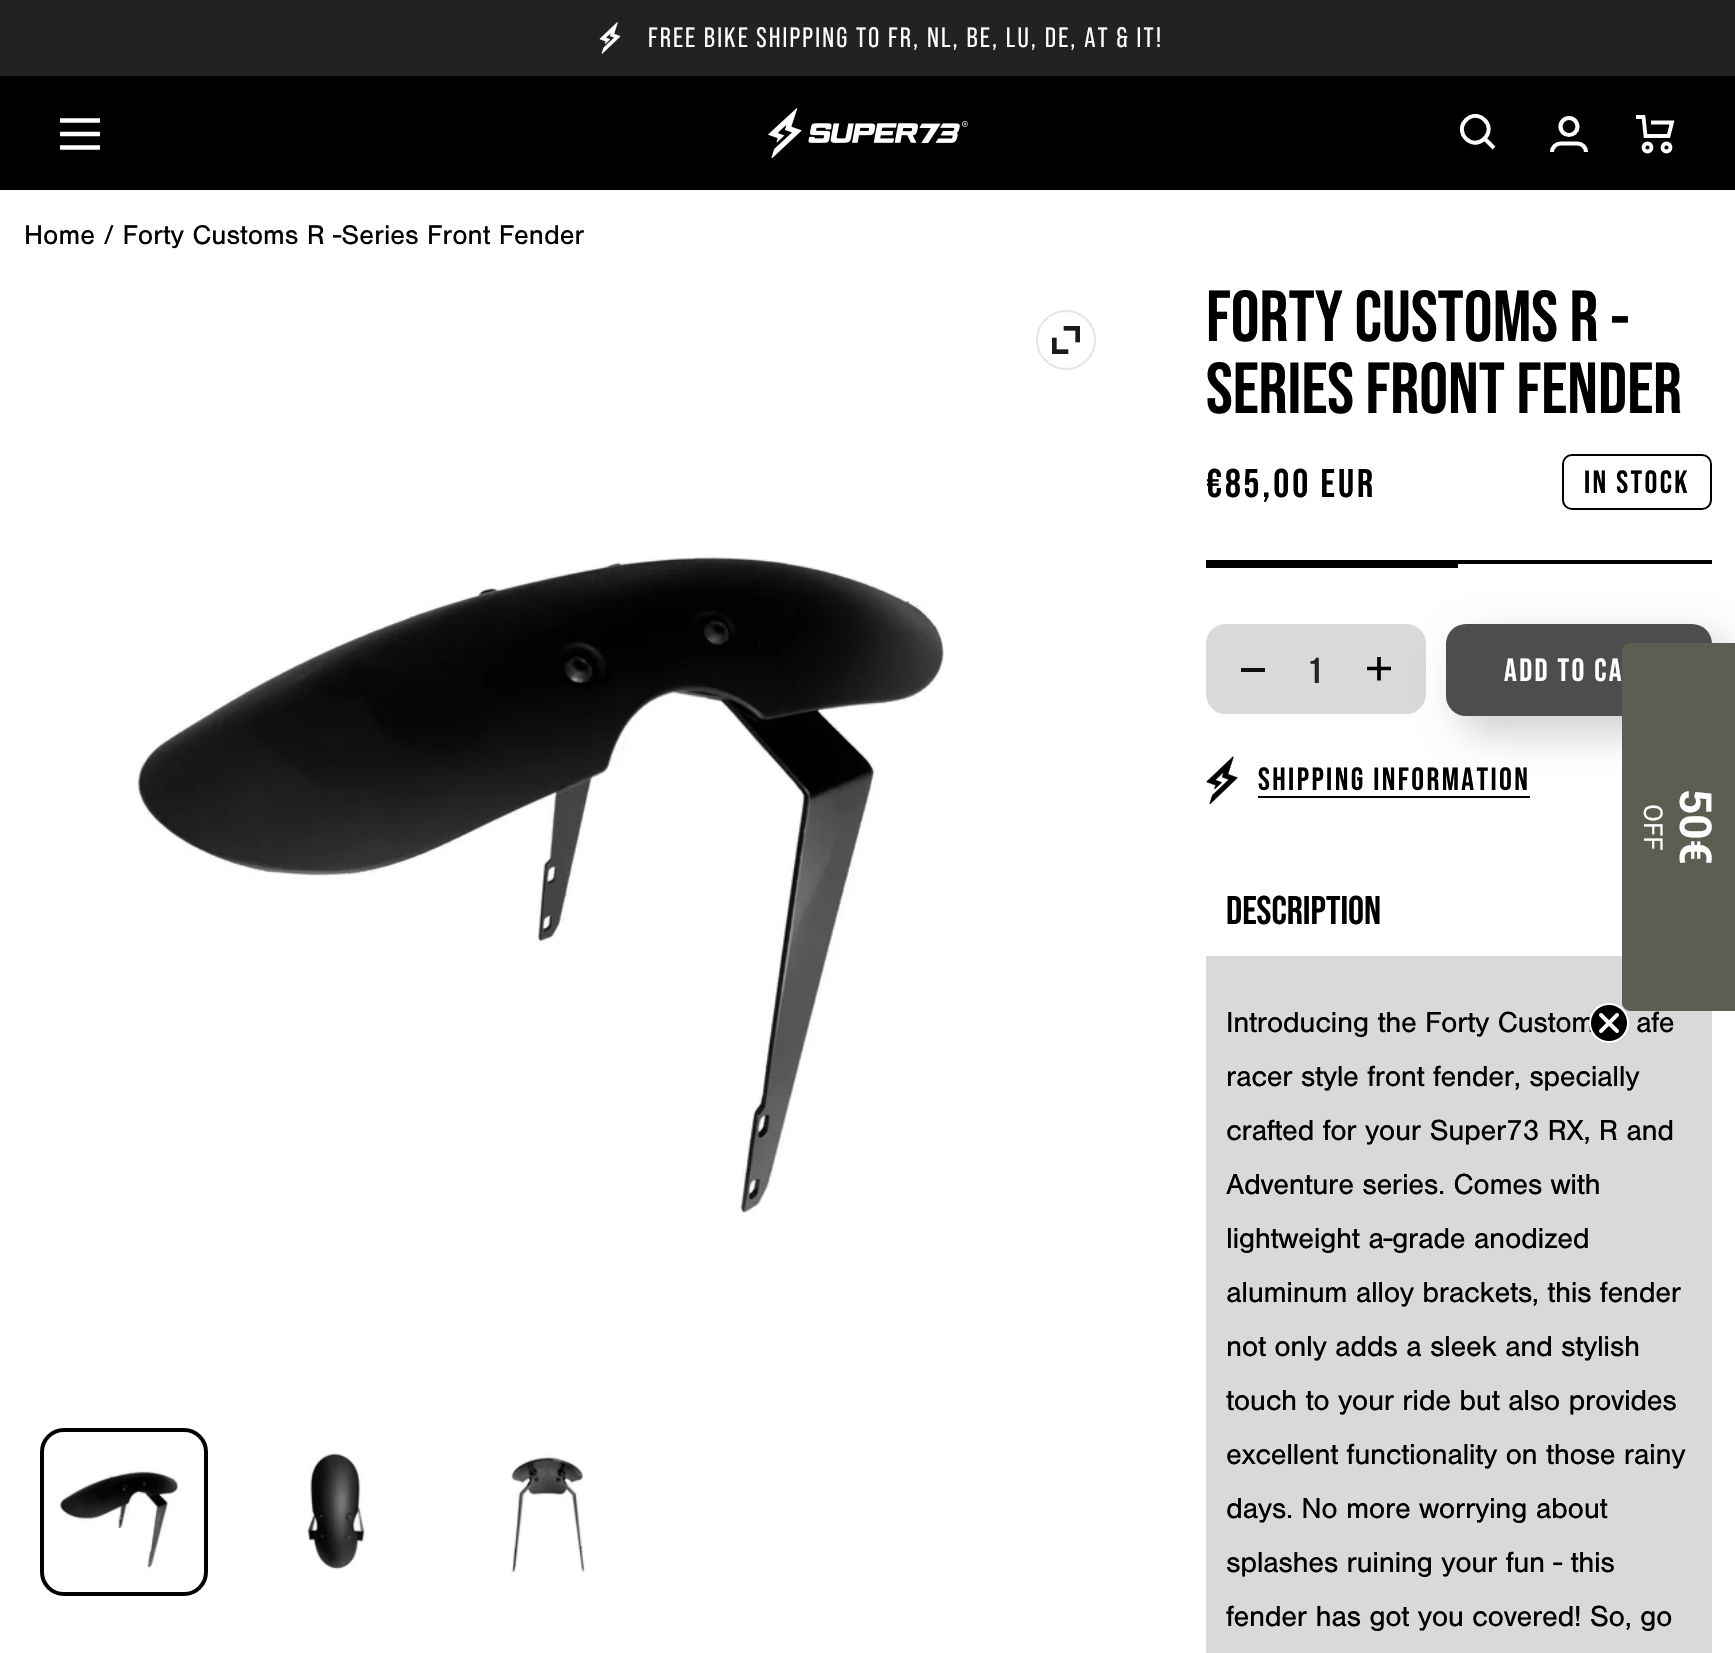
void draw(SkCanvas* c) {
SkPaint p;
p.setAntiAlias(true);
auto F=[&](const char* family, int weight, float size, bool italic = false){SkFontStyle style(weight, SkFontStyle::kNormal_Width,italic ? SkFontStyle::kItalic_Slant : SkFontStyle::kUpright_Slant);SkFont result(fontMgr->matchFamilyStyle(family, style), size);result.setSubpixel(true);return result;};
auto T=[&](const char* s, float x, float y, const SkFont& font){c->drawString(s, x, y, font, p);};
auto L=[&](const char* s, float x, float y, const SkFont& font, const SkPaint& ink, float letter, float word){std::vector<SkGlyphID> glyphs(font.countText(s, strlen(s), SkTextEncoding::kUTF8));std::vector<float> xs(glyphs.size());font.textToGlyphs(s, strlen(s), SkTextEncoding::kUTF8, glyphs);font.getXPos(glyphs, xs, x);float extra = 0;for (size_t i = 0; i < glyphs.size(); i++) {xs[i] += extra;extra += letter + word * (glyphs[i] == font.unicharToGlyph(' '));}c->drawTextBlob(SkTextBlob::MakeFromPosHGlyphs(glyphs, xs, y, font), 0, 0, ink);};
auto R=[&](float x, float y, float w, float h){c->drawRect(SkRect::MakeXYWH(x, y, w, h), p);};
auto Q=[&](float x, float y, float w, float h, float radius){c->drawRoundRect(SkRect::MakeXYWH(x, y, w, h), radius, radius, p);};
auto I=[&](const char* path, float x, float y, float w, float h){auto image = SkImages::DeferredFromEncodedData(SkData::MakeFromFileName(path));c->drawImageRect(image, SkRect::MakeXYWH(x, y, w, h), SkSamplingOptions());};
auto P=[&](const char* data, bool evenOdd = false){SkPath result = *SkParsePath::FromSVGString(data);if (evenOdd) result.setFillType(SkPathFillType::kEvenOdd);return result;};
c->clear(0xffffffff);
p.setColor(0xff232121);
R(0,0,1735,76);
I("1.png",599,22,22,32);
auto f1 = F("Bebas Neue",400,28);
p.setColor(0xffffffff);
L("FREE BIKE SHIPPING TO FR, NL, BE, LU, DE, AT & IT!",648,47,f1,p,2.1,0);
p.setColor(0xff000000);
R(0,76,1735,114);
p.setStroke(true);
p.setStrokeWidth(4.4);
p.setColor(0xffffffff);
c->drawPath(P("M60 120.5h40m-40 27h40zm0-13.5h40z"),p);
I("2.png",768,108,200,50);
c->save();
c->clipRect(SkRect::MakeXYWH(1460,114,36,36));
p.setStrokeWidth(4);
c->drawPath(P("M1484.5 138.5c12.5-12.5-6-31-18.5-18.5c-12.5 12.5 6 31 18.5 18.5zm0 0l9.5 9.5"),p);
c->restore();
p.setStrokeWidth(4.2);
c->drawCircle(1569,126.5,8.5,p);
c->drawPath(P("M1552 152c0-4.5 4-8.5 8.5-8.5h17c4.5 0 8.5 4 8.5 8.5"),p);
p.setStrokeWidth(3.8);
c->drawPath(P("M1636 117h7.5l2 19h23l3.5-13.5h-21"),p);
c->drawCircle(1647.5,147.5,4,p);
c->drawCircle(1666.5,147.5,4,p);
auto f2 = F("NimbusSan",400,28);
p.setStroke(false);
p.setColor(0xff000000);
T("Home / Forty Customs R -Series Front Fender",24,244,f2);
I("3.png",24,280,1102,1102);
p.setStroke(true);
p.setStrokeWidth(2);
p.setColor(0xffe6e6e6);
c->drawCircle(1066,340,29,p);
I("4.png",1052,326,28,28);
I("5.png",44,1432,160,160);
p.setStrokeWidth(4);
p.setColor(0xff000000);
c->drawRoundRect(SkRect::MakeXYWH(42,1430,164,164),22,22,p);
p.setStroke(false);
p.setColor(0xffededed);
Q(256,1432,160,160,20);
I("6.png",256,1432,160,160);
Q(468,1432,160,160,20);
I("7.png",468,1432,160,160);
auto f3 = F("Bebas Neue",700,72);
p.setColor(0xff000000);
T("FORTY CUSTOMS R -",1206,341,f3);
T("SERIES FRONT FENDER",1206,413,f3);
R(1206,560,506,4);
auto f4 = F("Bebas Neue",700,40);
L("€85,00 EUR",1206,497,f4,p,3,0);
p.setStroke(true);
p.setStrokeWidth(2);
c->drawRoundRect(SkRect::MakeXYWH(1563,455,148,54),9,9,p);
auto f5 = F("Bebas Neue",700,32);
p.setStroke(false);
L("IN STOCK",1584,493,f5,p,2.4,0);
R(1206,564,252,4);
p.setColor(0xffd9d9d9);
c->drawRoundRect(SkRect::MakeXYWH(1207,625,218,88),19,19,p);
p.setStroke(true);
c->drawRoundRect(SkRect::MakeXYWH(1207,625,218,88),19,19,p);
p.setStroke(false);
p.setColor(0xff101010);
R(1241,668,24,4);
auto f6 = F("Bebas Neue",700,36);
p.setColor(0xff212121);
T("1",1310,683,f6);
p.setStroke(true);
p.setStrokeWidth(3.7);
p.setColor(0xff000000);
c->drawPath(P("M1367 668.5h24m-12-11.5v23.5"),p);
p.setStroke(false);
p.setColor(0x33000000);
p.setMaskFilter(SkMaskFilter::MakeBlur(kNormal_SkBlurStyle, 20));
c->drawRoundRect(SkRect::MakeXYWH(1462,640,266,92),20,20,p);
p.setMaskFilter(nullptr);
p.setColor(0xff4d4d4d);
Q(1446,624,266,92,20);
p.setColor(0xffffffff);
L("ADD TO CA",1504,681,f5,p,2.4,0);
I("8.png",1206,756,32,48);
p.setColor(0xff000000);
L("SHIPPING INFORMATION",1258,790,f5,p,2.4,0);
R(1258,796,272,2);
T("DESCRIPTION",1226,924,f4);
p.setColor(0xffd9d9d9);
R(1206,956,506,697);
auto f7 = F("NimbusSan",400,30);
p.setColor(0xff000000);
L("Introducing the Forty Custom",1226,1032,f7,p,-.4,0);
L("afe",1636,1032,f7,p,-.4,0);
L("racer style front fender, specially",1226,1086,f7,p,-.4,0);
L("crafted for your Super73 RX, R and",1226,1140,f7,p,-.4,0);
L("Adventure series. Comes with",1226,1194,f7,p,-.4,0);
L("lightweight a-grade anodized",1226,1248,f7,p,-.4,0);
L("aluminum alloy brackets, this fender",1226,1302,f7,p,-.4,0);
L("not only adds a sleek and stylish",1226,1356,f7,p,-.4,0);
L("touch to your ride but also provides",1226,1410,f7,p,-.4,0);
L("excellent functionality on those rainy",1226,1464,f7,p,-.4,0);
L("days. No more worrying about",1226,1518,f7,p,-.4,0);
L("splashes ruining your fun - this",1226,1572,f7,p,-.4,0);
L("fender has got you covered! So, go",1226,1626,f7,p,-.4,0);
p.setColor(0xff5b5f52);
c->drawPath(P("M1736 643v368h-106c-4 0-8-4-8-8v-352c0-4 4-8 8-8z"),p);
auto f8 = F("Roboto",400,26);
p.setColor(0xffffffff);
c->save();
c->rotate(90,1644,804);
T("OFF",1644,804,f8);
c->restore();
auto f9 = F("Roboto",700,44);
c->save();
c->rotate(90,1680,789);
T("50€",1680,789,f9);
c->restore();
I("9.png",1589,1003,40,40);
}
